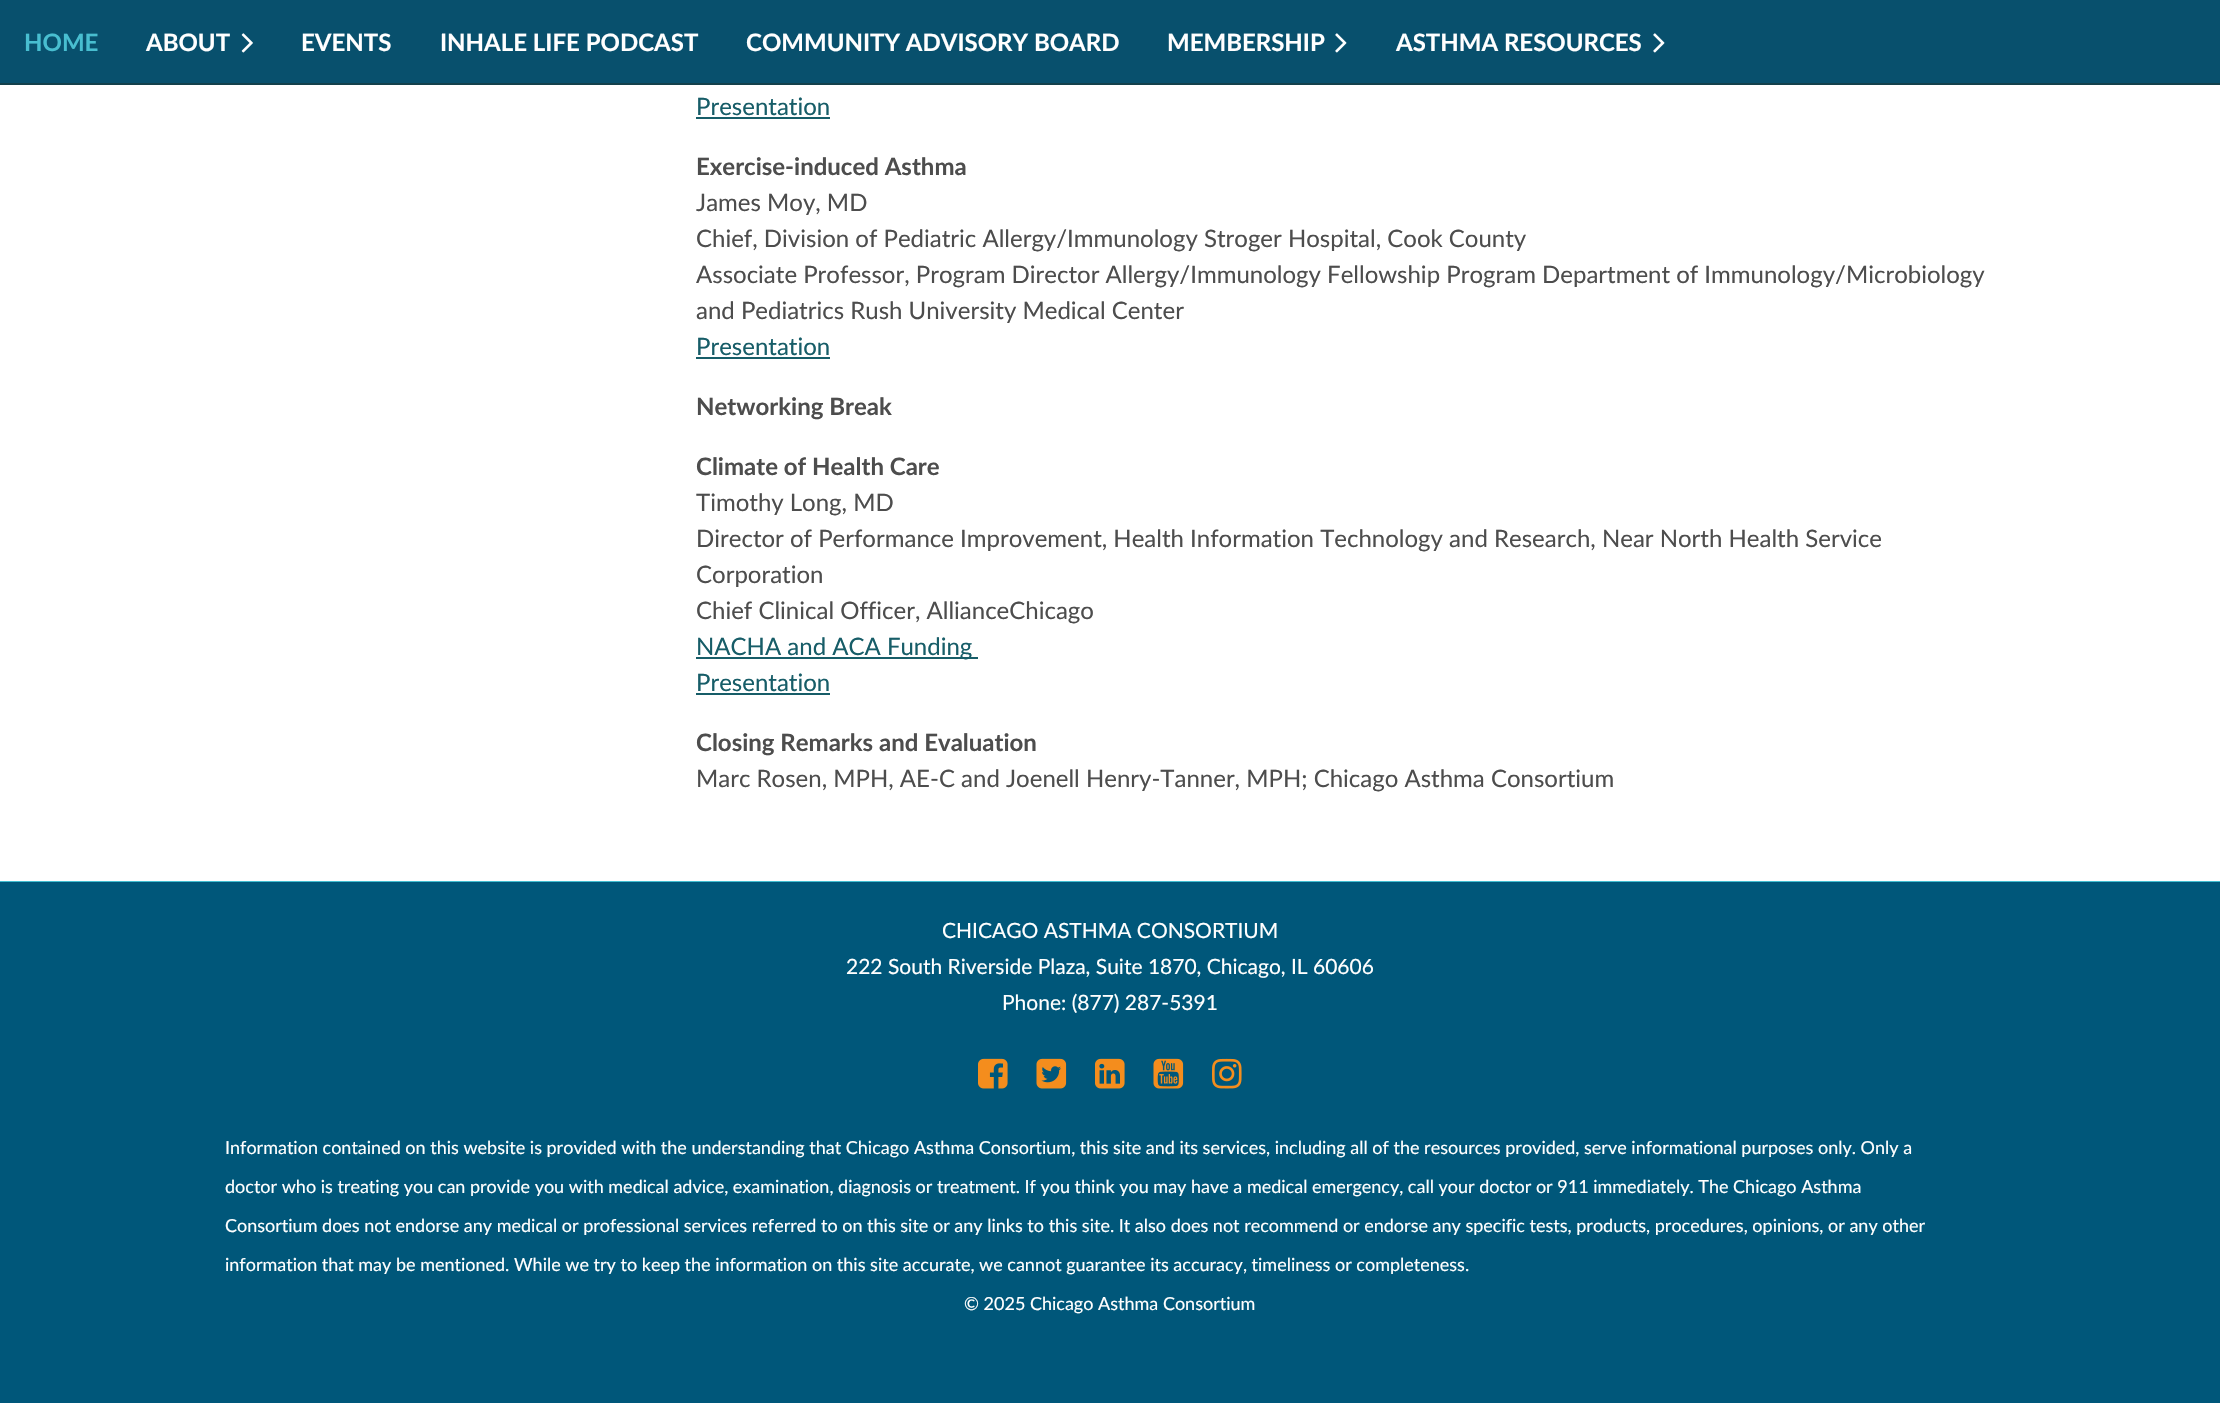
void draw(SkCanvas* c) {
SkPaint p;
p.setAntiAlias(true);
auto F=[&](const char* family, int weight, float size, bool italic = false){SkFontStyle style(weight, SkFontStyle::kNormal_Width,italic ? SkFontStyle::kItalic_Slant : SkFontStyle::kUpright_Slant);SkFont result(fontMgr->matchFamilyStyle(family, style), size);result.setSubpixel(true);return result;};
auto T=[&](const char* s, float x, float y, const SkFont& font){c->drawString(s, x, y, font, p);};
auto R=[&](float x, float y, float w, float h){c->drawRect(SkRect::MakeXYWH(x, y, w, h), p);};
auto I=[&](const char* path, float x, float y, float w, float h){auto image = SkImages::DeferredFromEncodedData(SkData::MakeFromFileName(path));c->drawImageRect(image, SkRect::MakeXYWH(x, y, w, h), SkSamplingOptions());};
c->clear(0xff00577a);
p.setColor(0xff13404b);
R(0,83,2220,2);
p.setColor(0xff08506d);
R(0,0,2220,83);
auto f1 = F("Lato",700,24);
p.setColor(0xff48bed0);
T("HOME",24,51,f1);
p.setColor(0xffffffff);
T("ABOUT",146,51,f1);
I("1.png",241,33,12,20);
T("EVENTS",301,51,f1);
T("INHALE LIFE PODCAST",440,51,f1);
T("COMMUNITY ADVISORY BOARD",746,51,f1);
T("MEMBERSHIP",1167,51,f1);
I("2.png",1335,33,12,20);
T("ASTHMA RESOURCES",1396,51,f1);
I("2.png",1653,33,12,20);
R(0,85,2220,796);
auto f2 = F("Lato",400,24);
p.setColor(0xff175d68);
T("Presentation",696,115,f2);
R(696,117,134,2);
p.setColor(0xff4d4d4d);
T("Exercise-induced Asthma",696,175,f1);
T("James Moy, MD",696,211,f2);
T("Chief, Division of Pediatric Allergy/Immunology Stroger Hospital, Cook County",696,247,f2);
T("Associate Professor, Program Director Allergy/Immunology Fellowship Program Department of Immunology/Microbiology",696,283,f2);
T("and Pediatrics Rush University Medical Center",696,319,f2);
p.setColor(0xff175d68);
T("Presentation",696,355,f2);
R(696,357,134,2);
p.setColor(0xff4d4d4d);
T("Networking Break",696,415,f1);
T("Climate of Health Care",696,475,f1);
T("Timothy Long, MD",696,511,f2);
T("Director of Performance Improvement, Health Information Technology and Research, Near North Health Service",696,547,f2);
T("Corporation",696,583,f2);
T("Chief Clinical Officer, AllianceChicago",696,619,f2);
p.setColor(0xff175d68);
R(696,657,282,2);
T("NACHA and ACA Funding",696,655,f2);
T("Presentation",696,691,f2);
R(696,693,134,2);
p.setColor(0xff4d4d4d);
T("Closing Remarks and Evaluation",696,751,f1);
T("Marc Rosen, MPH, AE-C and Joenell Henry-Tanner, MPH; Chicago Asthma Consortium",696,787,f2);
p.setColor(0xff41bed1);
R(0,881,2220,1);
auto f3 = F("Lato",400,21);
p.setColor(0xffffffff);
T("CHICAGO ASTHMA CONSORTIUM",942,938,f3);
T("222 South Riverside Plaza, Suite 1870, Chicago, IL 60606",846,974,f3);
T("Phone: (877) 287-5391",1002,1010,f3);
I("3.png",978,1058,30,31);
I("4.png",1036,1058,31,31);
I("5.png",1095,1058,30,31);
I("6.png",1153,1058,31,31);
I("7.png",1212,1058,30,31);
auto f4 = F("Lato",400,18);
T("Information contained on this website is provided with the understanding that Chicago Asthma Consortium, this site and its services, including all of the resources provided, serve informational purposes only. Only a",225,1154,f4);
T("doctor who is treating you can provide you with medical advice, examination, diagnosis or treatment. If you think you may have a medical emergency, call your doctor or 911 immediately. The Chicago Asthma",225,1193,f4);
T("Consortium does not endorse any medical or professional services referred to on this site or any links to this site. It also does not recommend or endorse any specific tests, products, procedures, opinions, or any other",225,1232,f4);
T("information that may be mentioned. While we try to keep the information on this site accurate, we cannot guarantee its accuracy, timeliness or completeness.",225,1271,f4);
T("© 2025 Chicago Asthma Consortium",964,1310,f4);
}
